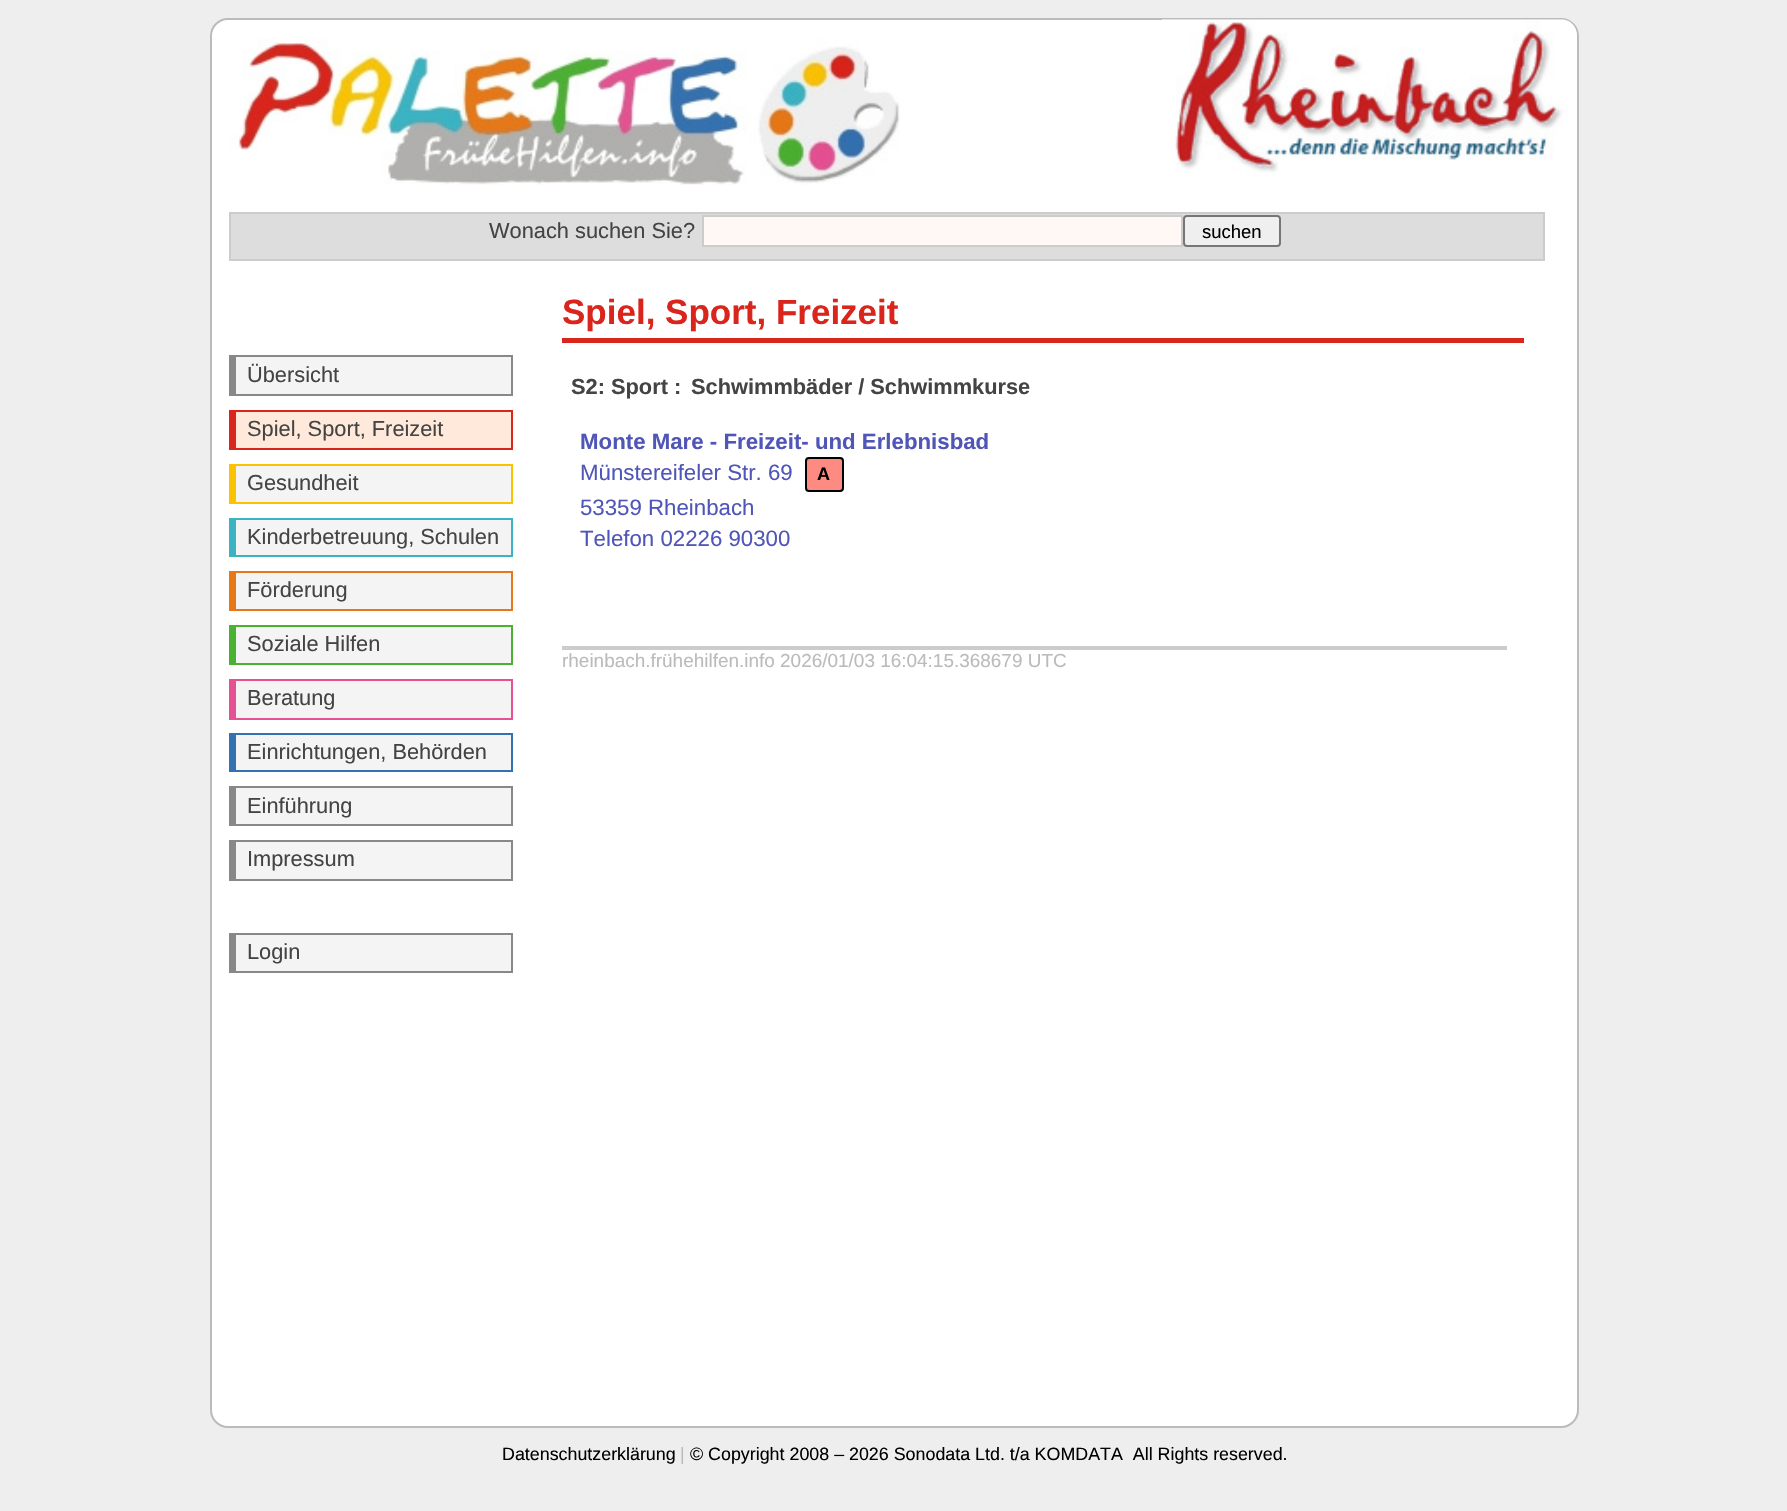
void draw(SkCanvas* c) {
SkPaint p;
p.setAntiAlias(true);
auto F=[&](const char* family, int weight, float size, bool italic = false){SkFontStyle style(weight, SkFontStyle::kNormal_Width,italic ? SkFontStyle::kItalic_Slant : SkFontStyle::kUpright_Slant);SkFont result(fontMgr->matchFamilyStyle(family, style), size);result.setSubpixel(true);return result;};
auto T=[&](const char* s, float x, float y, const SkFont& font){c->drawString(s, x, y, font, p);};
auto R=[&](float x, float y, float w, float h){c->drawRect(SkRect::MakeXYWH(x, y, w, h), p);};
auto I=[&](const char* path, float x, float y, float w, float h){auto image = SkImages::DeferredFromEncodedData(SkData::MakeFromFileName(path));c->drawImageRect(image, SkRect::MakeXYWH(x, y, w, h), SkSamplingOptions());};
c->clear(0xffeeeeee);
p.setColor(0xffffffff);
c->drawRoundRect(SkRect::MakeXYWH(211,19,1367,1408),17,17,p);
p.setStroke(true);
p.setStrokeWidth(2);
p.setColor(0xffbbbbbb);
c->drawRoundRect(SkRect::MakeXYWH(211,19,1367,1408),17,17,p);
I("1.png",229,37,671,148);
I("2.png",1162,19,415,154);
p.setStroke(false);
p.setColor(0xffdddddd);
c->drawRect(SkRect::MakeXYWH(230,213,1314,47),p);
p.setStroke(true);
p.setColor(0xffcccccc);
c->drawRect(SkRect::MakeXYWH(230,213,1314,47),p);
auto f1 = F("Liberation Sans",400,21.8);
p.setStroke(false);
p.setColor(0xff444444);
T("Wonach suchen Sie?",489,238,f1);
p.setColor(0xfffff8f4);
c->drawRect(SkRect::MakeXYWH(703,216,479,30),p);
p.setStroke(true);
p.setColor(0xffcccccc);
c->drawRect(SkRect::MakeXYWH(703,216,479,30),p);
p.setStroke(false);
p.setColor(0xffefefef);
c->drawRoundRect(SkRect::MakeXYWH(1184,216,96,30),3,3,p);
p.setStroke(true);
p.setColor(0xff767676);
c->drawRoundRect(SkRect::MakeXYWH(1184,216,96,30),3,3,p);
auto f2 = F("Liberation Sans",400,18.5);
p.setStroke(false);
p.setColor(0xff000000);
T("suchen",1202,238,f2);
p.setColor(0xfff4f4f4);
R(236,357,275,37);
p.setColor(0xff888888);
R(229,355,284,2);
R(511,355,2,41);
R(229,394,284,2);
R(229,355,7,41);
p.setColor(0xff444444);
T("Übersicht",247,382,f1);
p.setColor(0xfffee9db);
R(236,412,275,36);
p.setColor(0xffda251c);
R(229,410,284,2);
R(511,410,2,40);
R(229,448,284,2);
R(229,410,7,40);
p.setColor(0xff444444);
T("Spiel, Sport, Freizeit",247,436,f1);
p.setColor(0xfff4f4f4);
R(236,466,275,36);
p.setColor(0xfffac200);
R(229,464,284,2);
R(511,464,2,40);
R(229,502,284,2);
R(229,464,7,40);
p.setColor(0xff444444);
T("Gesundheit",247,490,f1);
p.setColor(0xfff4f4f4);
R(236,520,275,35);
p.setColor(0xff3bb3c3);
R(229,518,284,2);
R(511,518,2,39);
R(229,555,284,2);
R(229,518,7,39);
p.setColor(0xff444444);
T("Kinderbetreuung, Schulen",247,544,f1);
p.setColor(0xfff4f4f4);
R(236,573,275,36);
p.setColor(0xffe77815);
R(229,571,284,2);
R(511,571,2,40);
R(229,609,284,2);
R(229,571,7,40);
p.setColor(0xff444444);
T("Förderung",247,597,f1);
p.setColor(0xfff4f4f4);
R(236,627,275,36);
p.setColor(0xff4bb133);
R(229,625,284,2);
R(511,625,2,40);
R(229,663,284,2);
R(229,625,7,40);
p.setColor(0xff444444);
T("Soziale Hilfen",247,651,f1);
p.setColor(0xfff4f4f4);
R(236,681,275,37);
p.setColor(0xffe55192);
R(229,679,284,2);
R(511,679,2,40);
R(229,718,284,2);
R(229,679,7,40);
p.setColor(0xff444444);
T("Beratung",247,705,f1);
p.setColor(0xfff4f4f4);
R(236,735,275,35);
p.setColor(0xff3471b1);
R(229,733,284,2);
R(511,733,2,39);
R(229,770,284,2);
R(229,733,7,39);
p.setColor(0xff444444);
T("Einrichtungen, Behörden",247,759,f1);
p.setColor(0xfff4f4f4);
R(236,788,275,36);
p.setColor(0xff888888);
R(229,786,284,2);
R(511,786,2,40);
R(229,824,284,2);
R(229,786,7,40);
p.setColor(0xff444444);
T("Einführung",247,813,f1);
p.setColor(0xfff4f4f4);
R(236,842,275,37);
p.setColor(0xff888888);
R(229,840,284,2);
R(511,840,2,40);
R(229,879,284,2);
R(229,840,7,40);
p.setColor(0xff444444);
T("Impressum",247,866,f1);
p.setColor(0xfff4f4f4);
R(236,935,275,36);
p.setColor(0xff888888);
R(229,933,284,2);
R(511,933,2,40);
R(229,971,284,2);
R(229,933,7,40);
p.setColor(0xff444444);
T("Login",247,959,f1);
p.setColor(0xffda251c);
R(562,338,962,5);
auto f3 = F("Liberation Sans",700,35);
T("Spiel, Sport, Freizeit",562,324,f3);
auto f4 = F("Liberation Sans",700,21.8);
p.setColor(0xff444444);
T("S2: Sport :",571,394,f4);
T("Schwimmbäder / Schwimmkurse",691,394,f4);
auto f5 = F("Liberation Sans",700,22.25);
p.setColor(0xff5056b8);
T("Monte Mare - Freizeit- und Erlebnisbad",580,449,f5);
auto f6 = F("Liberation Sans",400,22.25);
T("Münstereifeler Str. 69",580,480,f6);
p.setColor(0xfffe8b82);
c->drawRoundRect(SkRect::MakeXYWH(806,458,37,33),3,3,p);
p.setStroke(true);
p.setColor(0xff000000);
c->drawRoundRect(SkRect::MakeXYWH(806,458,37,33),3,3,p);
auto f7 = F("Liberation Sans",700,18);
p.setStroke(false);
T("A",817,480,f7);
p.setColor(0xff5056b8);
T("53359 Rheinbach",580,515,f6);
T("Telefon 02226 90300",580,546,f6);
p.setColor(0xffcccccc);
R(562,646,945,4);
auto f8 = F("Liberation Sans",400,18.95);
p.setColor(0xffbbbbbb);
T("rheinbach.frühehilfen.info 2026/01/03 16:04:15.368679 UTC",562,667,f8);
auto f9 = F("Liberation Sans",400,17.85);
p.setColor(0xff000000);
T("Datenschutzerklärung",502,1460,f9);
p.setColor(0xffbbbbbb);
T("|",680,1460,f9);
p.setColor(0xff000000);
T("© Copyright 2008 – 2026 Sonodata Ltd. t/a KOMDATA  All Rights reserved.",690,1460,f9);
}
